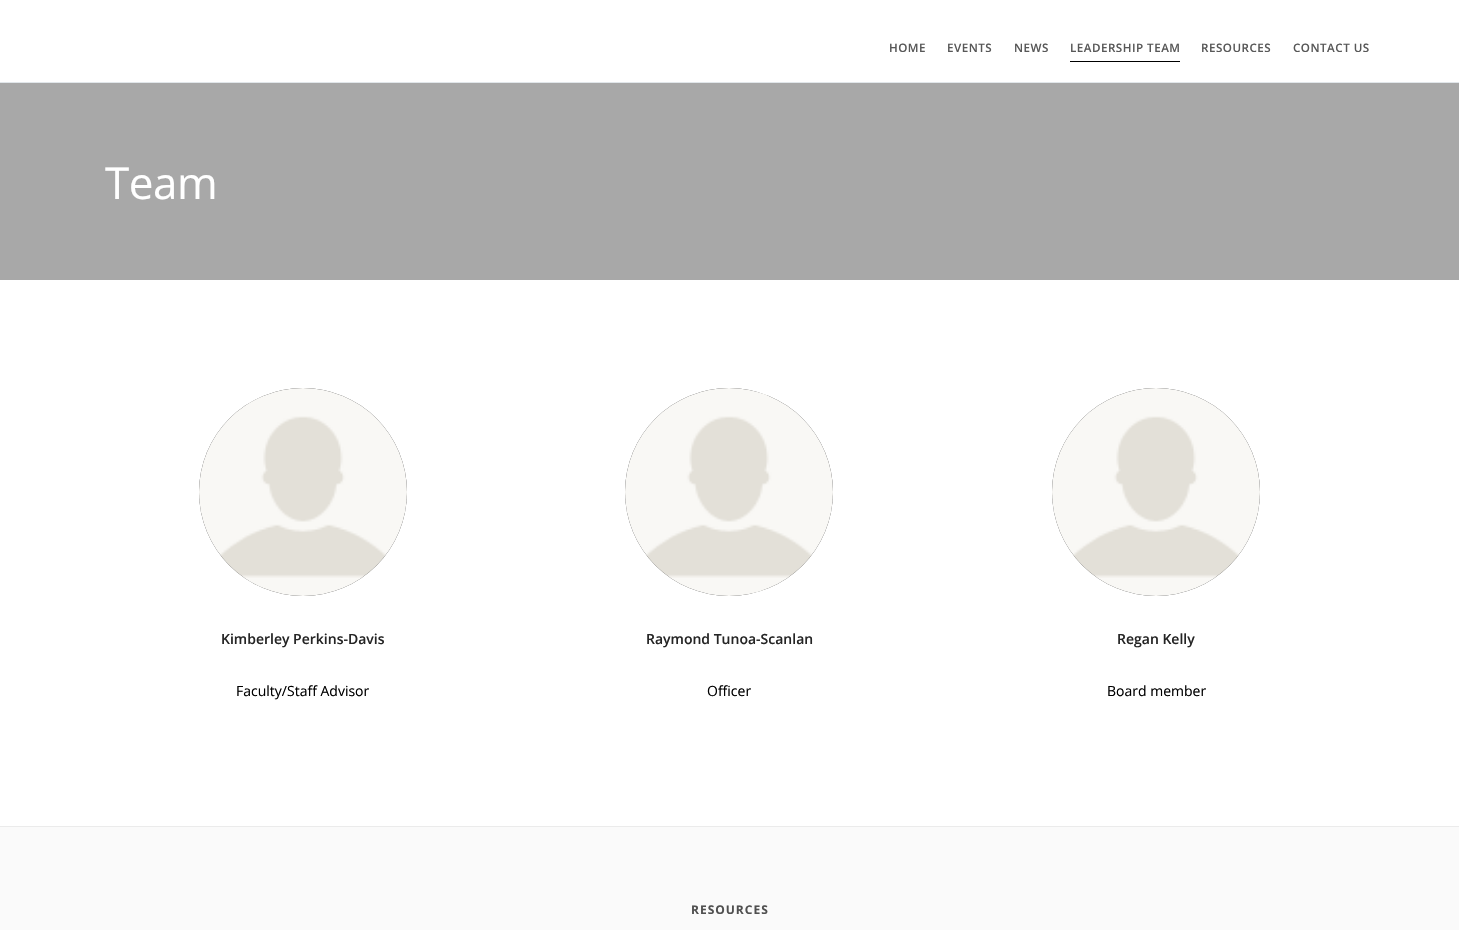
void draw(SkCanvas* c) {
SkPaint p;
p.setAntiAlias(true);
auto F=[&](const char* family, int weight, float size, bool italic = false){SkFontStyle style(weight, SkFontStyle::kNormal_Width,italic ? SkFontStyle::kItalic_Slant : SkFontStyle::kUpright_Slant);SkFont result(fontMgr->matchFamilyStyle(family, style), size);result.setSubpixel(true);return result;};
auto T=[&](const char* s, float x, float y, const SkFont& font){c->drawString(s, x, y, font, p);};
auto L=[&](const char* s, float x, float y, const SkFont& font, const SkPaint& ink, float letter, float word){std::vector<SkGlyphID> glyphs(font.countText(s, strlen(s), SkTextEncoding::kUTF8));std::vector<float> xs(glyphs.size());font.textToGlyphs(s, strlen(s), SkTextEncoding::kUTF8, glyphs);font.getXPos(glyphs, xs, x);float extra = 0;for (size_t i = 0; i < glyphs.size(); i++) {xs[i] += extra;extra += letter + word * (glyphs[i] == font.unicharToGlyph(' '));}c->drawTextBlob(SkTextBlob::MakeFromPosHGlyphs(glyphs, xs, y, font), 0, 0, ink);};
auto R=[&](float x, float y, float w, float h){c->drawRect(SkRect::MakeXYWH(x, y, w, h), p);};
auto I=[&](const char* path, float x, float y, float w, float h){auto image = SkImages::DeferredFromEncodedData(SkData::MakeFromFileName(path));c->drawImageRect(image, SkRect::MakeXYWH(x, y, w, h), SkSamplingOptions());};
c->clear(0xffffffff);
p.setColor(0xffe1e6ea);
R(0,82,1459,1);
auto f1 = F("Open Sans",600,11.6);
p.setColor(0xff585858);
L("HOME",889,52,f1,p,.5,0);
L("EVENTS",947,52,f1,p,.5,0);
L("NEWS",1014,52,f1,p,.5,0);
p.setColor(0xff000000);
R(1070,61,110,1);
p.setColor(0xff585858);
L("LEADERSHIP TEAM",1070,52,f1,p,.5,0);
L("RESOURCES",1201,52,f1,p,.5,0);
L("CONTACT US",1293,52,f1,p,.5,0);
p.setColor(0xffa8a8a8);
R(0,83,1459,197);
auto f2 = F("Open Sans",400,44);
p.setColor(0xffffffff);
L("Team",105,199,f2,p,-.5,0);
p.setColor(0xff252525);
c->drawCircle(303,492,104,p);
I("1.png",199,388,208,208);
auto f3 = F("Open Sans",600,14);
T("Kimberley Perkins-Davis",221,644,f3);
auto f4 = F("Open Sans",400,14);
p.setColor(0xff000000);
T("Faculty/Staff Advisor",236,696,f4);
p.setColor(0xff252525);
c->drawCircle(729,492,104,p);
I("2.png",625,388,208,208);
T("Raymond Tunoa-Scanlan",646,644,f3);
p.setColor(0xff000000);
T("Officer",707,696,f4);
p.setColor(0xff252525);
c->drawCircle(1156,492,104,p);
I("3.png",1052,388,208,208);
T("Regan Kelly",1117,644,f3);
p.setColor(0xff000000);
T("Board member",1107,696,f4);
p.setColor(0xfffafafa);
R(0,827,1459,103);
p.setColor(0xffebebeb);
R(0,826,1459,1);
auto f5 = F("Open Sans",700,12);
p.setColor(0xff505050);
L("RESOURCES",691,914,f5,p,1,0);
}
